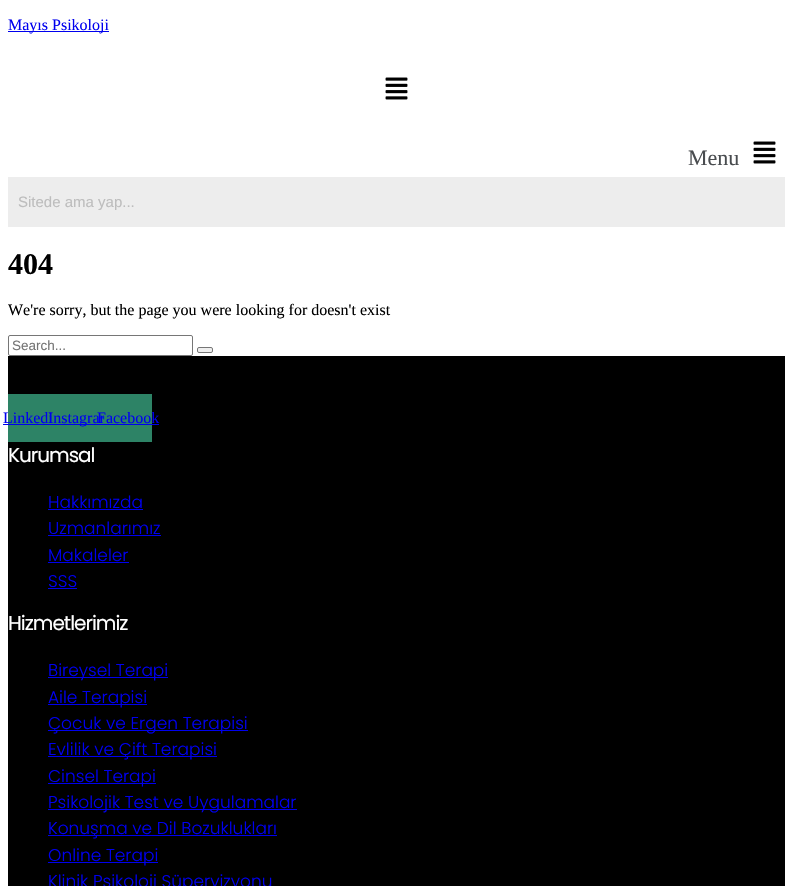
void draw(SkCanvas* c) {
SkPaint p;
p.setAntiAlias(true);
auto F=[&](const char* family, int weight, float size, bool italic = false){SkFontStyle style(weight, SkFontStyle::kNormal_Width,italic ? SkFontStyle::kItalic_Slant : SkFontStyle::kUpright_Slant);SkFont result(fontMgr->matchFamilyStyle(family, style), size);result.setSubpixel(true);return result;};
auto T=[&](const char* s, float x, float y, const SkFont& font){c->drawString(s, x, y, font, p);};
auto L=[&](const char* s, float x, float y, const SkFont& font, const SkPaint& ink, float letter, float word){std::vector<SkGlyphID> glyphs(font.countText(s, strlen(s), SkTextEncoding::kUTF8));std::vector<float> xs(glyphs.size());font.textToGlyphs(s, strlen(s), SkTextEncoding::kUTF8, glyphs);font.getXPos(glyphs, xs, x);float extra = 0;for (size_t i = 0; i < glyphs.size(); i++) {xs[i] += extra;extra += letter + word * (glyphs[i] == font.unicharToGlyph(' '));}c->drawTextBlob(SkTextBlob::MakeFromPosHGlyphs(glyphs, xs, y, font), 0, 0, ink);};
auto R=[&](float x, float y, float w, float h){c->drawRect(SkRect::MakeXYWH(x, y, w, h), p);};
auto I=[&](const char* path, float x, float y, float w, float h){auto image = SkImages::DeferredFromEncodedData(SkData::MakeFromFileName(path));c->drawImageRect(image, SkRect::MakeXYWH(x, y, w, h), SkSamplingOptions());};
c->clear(0xffffffff);
p.setColor(0xff0000ee);
R(8,31,101,1);
auto f1 = F("Liberation Serif",400,16);
T("Mayıs Psikoloji",8,30,f1);
I("1.png",385,77,23,23);
auto f2 = F("Liberation Serif",400,22);
p.setColor(0xff494c4f);
T("Menu",688,165,f2);
I("1.png",753,141,23,23);
p.setColor(0xffededed);
R(8,177,777,50);
auto f3 = F("Liberation Sans",400,15);
p.setColor(0xffbdbdbd);
T("Sitede ama yap...",18,207,f3);
auto f4 = F("Liberation Serif",700,30);
p.setColor(0xff000000);
T("404",8,274,f4);
T("We're sorry, but the page you were looking for doesn't exist",8,315,f1);
p.setStroke(true);
p.setStrokeWidth(1);
p.setColor(0xff767676);
c->drawRoundRect(SkRect::MakeXYWH(8.5,335.5,184,20),1.5,1.5,p);
auto f5 = F("Liberation Sans",400,13.5);
p.setStroke(false);
p.setColor(0xff757575);
T("Search...",12,350,f5);
p.setColor(0xffefefef);
c->drawRoundRect(SkRect::MakeXYWH(197.5,347.5,15,5),1.5,1.5,p);
p.setStroke(true);
p.setColor(0xff767676);
c->drawRoundRect(SkRect::MakeXYWH(197.5,347.5,15,5),1.5,1.5,p);
p.setStroke(false);
p.setColor(0xff000000);
R(8,356,777,530);
p.setColor(0xff2d8366);
R(8,394,96,48);
p.setColor(0xff0000ee);
T("Linkedi",3,423,f1);
R(3,424,94,1);
T("Instagram",48,423,f1);
p.setColor(0xff2d8366);
R(104,394,48,48);
p.setColor(0xff0000ee);
T("Facebook",97,423,f1);
R(97,424,62,1);
auto f6 = F("Poppins",400,20);
p.setColor(0xffffffff);
L("Kurumsal",8,462,f6,p,-1,0);
auto f7 = F("Poppins",300,17);
p.setColor(0xff0000ee);
T("Hakkımızda",48,508,f7);
R(48,509,95,1);
T("Uzmanlarımız",48,534,f7);
R(48,535,113,1);
T("Makaleler",48,561,f7);
R(48,562,81,1);
T("SSS",48,587,f7);
R(48,588,29,1);
p.setColor(0xffffffff);
L("Hizmetlerimiz",8,630,f6,p,-1,0);
p.setColor(0xff0000ee);
R(48,677,120,1);
T("Bireysel Terapi",48,676,f7);
R(48,704,99,1);
T("Aile Terapisi",48,703,f7);
R(48,730,200,1);
T("Çocuk ve Ergen Terapisi",48,729,f7);
R(48,756,169,1);
T("Evlilik ve Çift Terapisi",48,755,f7);
R(48,783,108,1);
T("Cinsel Terapi",48,782,f7);
R(48,809,249,1);
T("Psikolojik Test ve Uygulamalar",48,808,f7);
R(48,835,229,1);
T("Konuşma ve Dil Bozuklukları",48,834,f7);
R(48,862,110,1);
T("Online Terapi",48,861,f7);
T("Klinik Psikoloji Süpervizyonu",48,887,f7);
}
